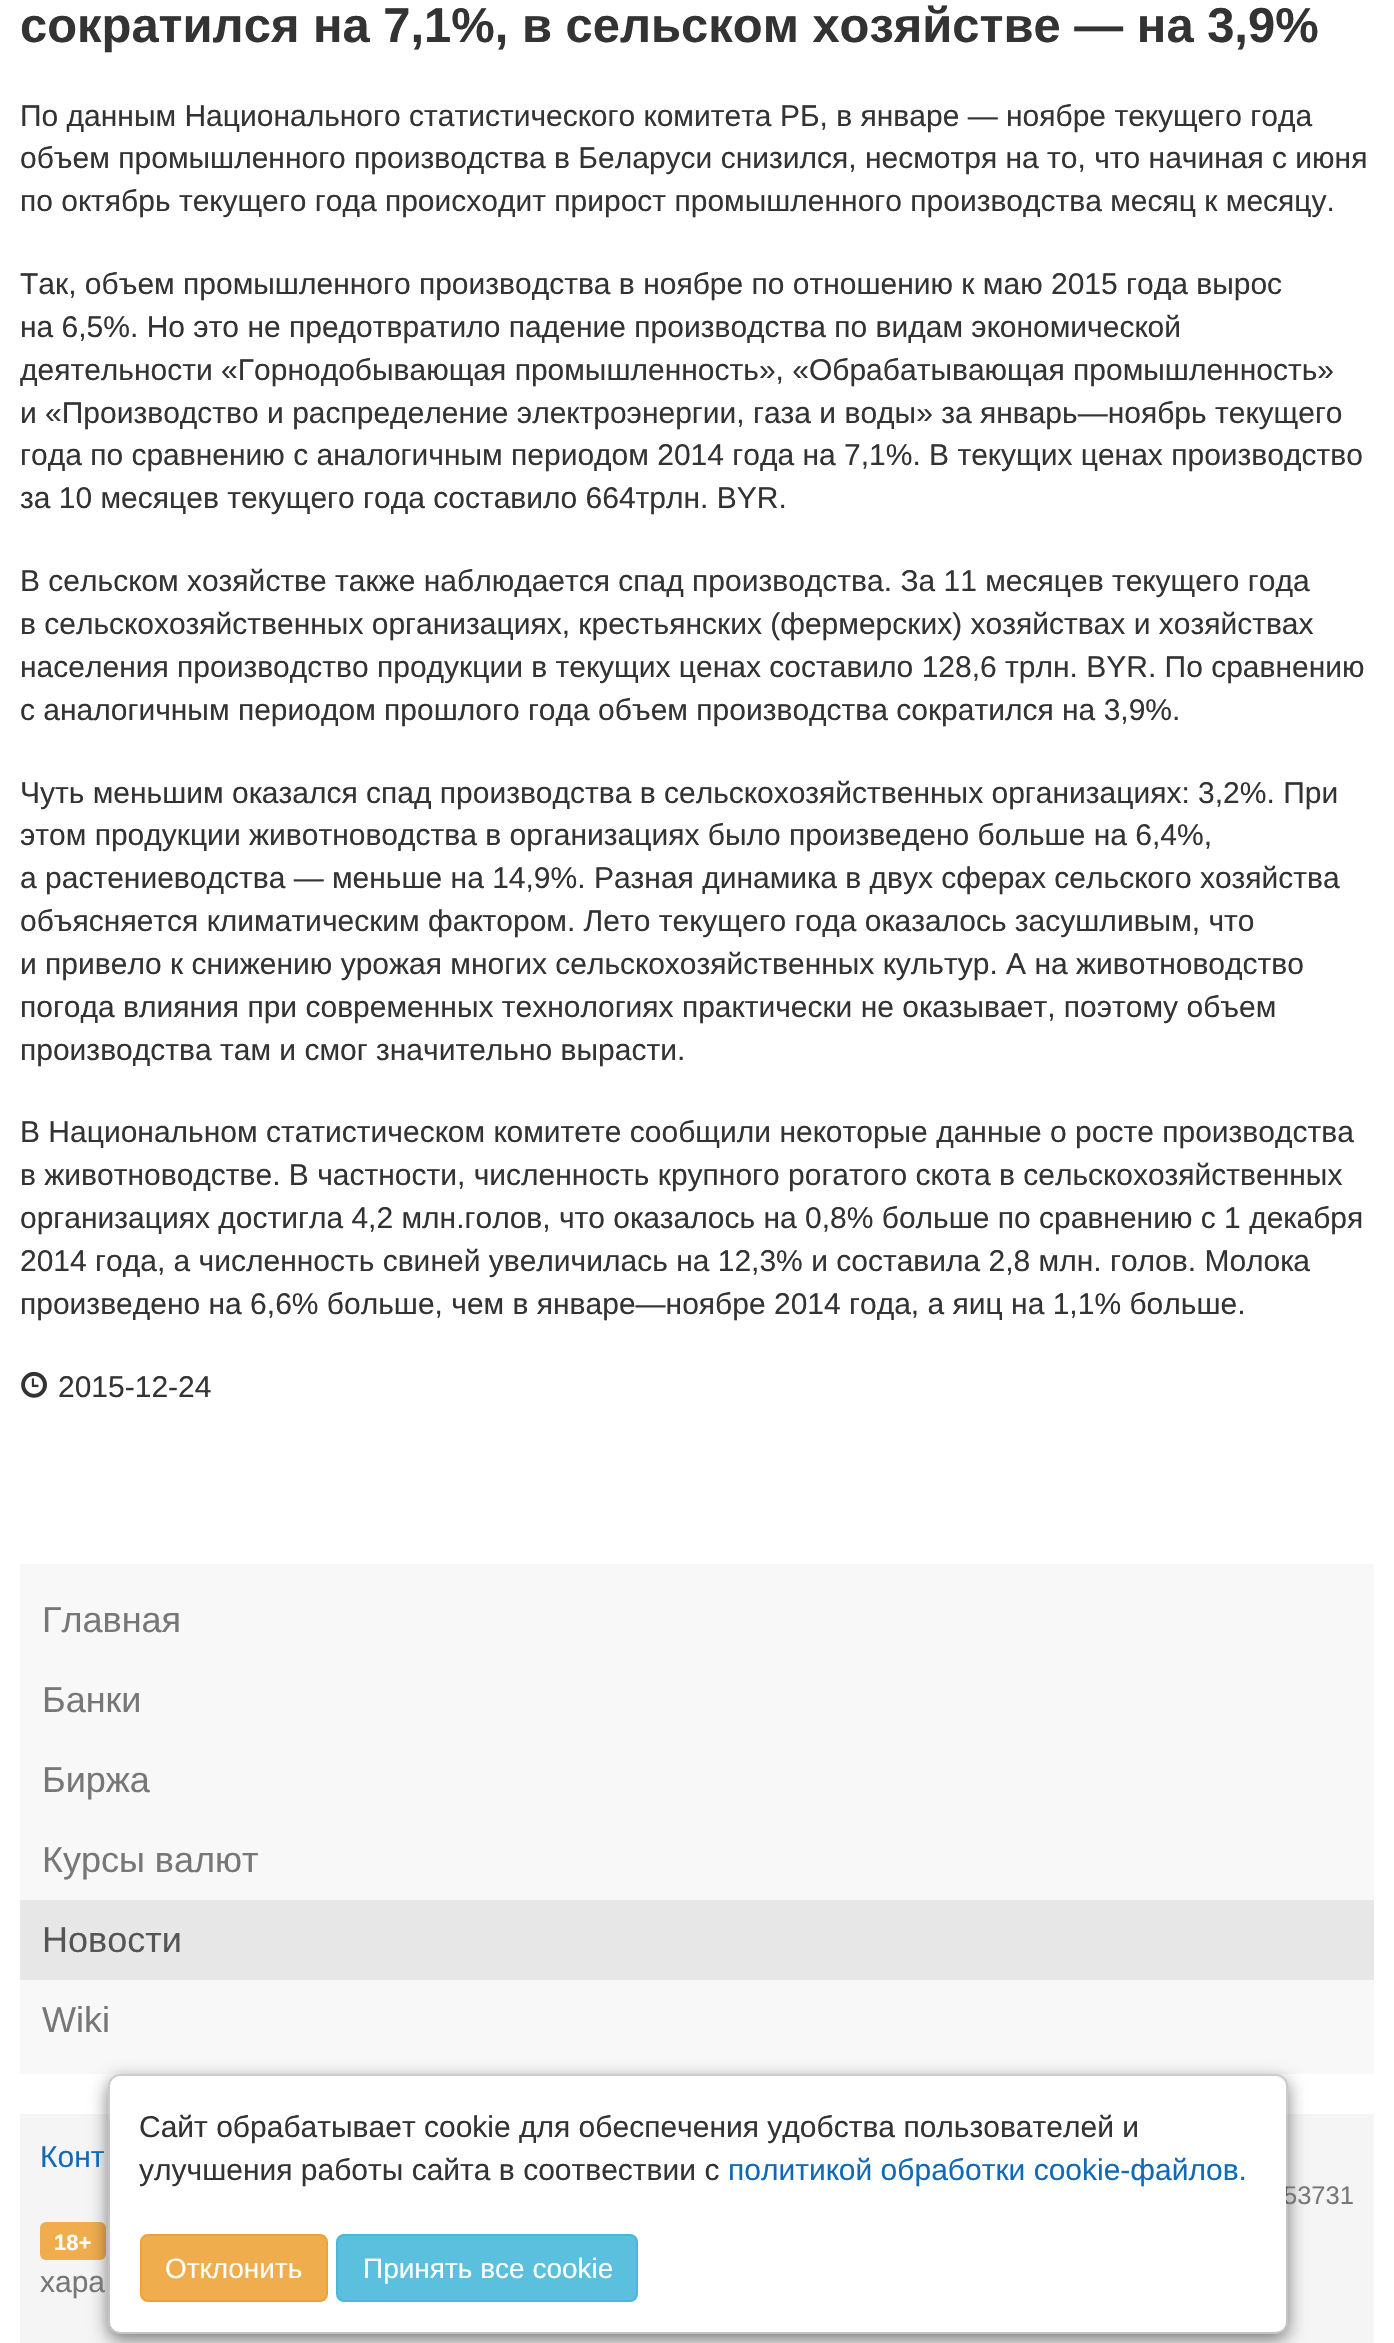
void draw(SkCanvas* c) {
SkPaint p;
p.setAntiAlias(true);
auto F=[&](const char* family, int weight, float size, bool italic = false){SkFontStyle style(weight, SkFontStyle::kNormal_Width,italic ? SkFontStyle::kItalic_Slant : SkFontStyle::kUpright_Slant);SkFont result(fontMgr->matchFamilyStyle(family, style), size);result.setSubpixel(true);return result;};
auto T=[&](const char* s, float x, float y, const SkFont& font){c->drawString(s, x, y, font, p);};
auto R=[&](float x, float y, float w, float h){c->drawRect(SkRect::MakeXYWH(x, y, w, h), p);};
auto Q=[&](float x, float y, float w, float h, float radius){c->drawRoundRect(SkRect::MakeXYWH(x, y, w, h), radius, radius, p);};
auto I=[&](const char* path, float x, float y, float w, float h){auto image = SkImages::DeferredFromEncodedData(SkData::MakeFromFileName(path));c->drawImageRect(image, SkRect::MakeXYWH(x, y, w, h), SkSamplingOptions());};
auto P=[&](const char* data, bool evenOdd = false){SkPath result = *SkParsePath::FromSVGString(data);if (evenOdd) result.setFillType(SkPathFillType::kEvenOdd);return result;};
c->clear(0xffffffff);
auto f1 = F("Liberation Sans",700,48.9);
p.setColor(0xff333333);
T("сократился на 7,1%, в сельском хозяйстве — на 3,9%",20,42,f1);
auto f2 = F("Liberation Sans",400,30);
T("По данным Национального статистического комитета РБ, в январе — ноябре текущего года",20,126,f2);
T("объем промышленного производства в Беларуси снизился, несмотря на то, что начиная с июня",20,168,f2);
T("по октябрь текущего года происходит прирост промышленного производства месяц к месяцу.",20,211,f2);
T("Так, объем промышленного производства в ноябре по отношению к маю 2015 года вырос",20,294,f2);
T("на 6,5%. Но это не предотвратило падение производства по видам экономической",20,337,f2);
T("деятельности «Горнодобывающая промышленность», «Обрабатывающая промышленность»",20,380,f2);
T("и «Производство и распределение электроэнергии, газа и воды» за январь—ноябрь текущего",20,423,f2);
T("года по сравнению с аналогичным периодом 2014 года на 7,1%. В текущих ценах производство",20,465,f2);
T("за 10 месяцев текущего года составило 664трлн. BYR.",20,508,f2);
T("В сельском хозяйстве также наблюдается спад производства. За 11 месяцев текущего года",20,591,f2);
T("в сельскохозяйственных организациях, крестьянских (фермерских) хозяйствах и хозяйствах",20,634,f2);
T("населения производство продукции в текущих ценах составило 128,6 трлн. BYR. По сравнению",20,677,f2);
T("с аналогичным периодом прошлого года объем производства сократился на 3,9%.",20,720,f2);
T("Чуть меньшим оказался спад производства в сельскохозяйственных организациях: 3,2%. При",20,803,f2);
T("этом продукции животноводства в организациях было произведено больше на 6,4%,",20,845,f2);
T("а растениеводства — меньше на 14,9%. Разная динамика в двух сферах сельского хозяйства",20,888,f2);
T("объясняется климатическим фактором. Лето текущего года оказалось засушливым, что",20,931,f2);
T("и привело к снижению урожая многих сельскохозяйственных культур. А на животноводство",20,974,f2);
T("погода влияния при современных технологиях практически не оказывает, поэтому объем",20,1017,f2);
T("производства там и смог значительно вырасти.",20,1060,f2);
T("В Национальном статистическом комитете сообщили некоторые данные о росте производства",20,1142,f2);
T("в животноводстве. В частности, численность крупного рогатого скота в сельскохозяйственных",20,1185,f2);
T("организациях достигла 4,2 млн.голов, что оказалось на 0,8% больше по сравнению с 1 декабря",20,1228,f2);
T("2014 года, а численность свиней увеличилась на 12,3% и составила 2,8 млн. голов. Молока",20,1271,f2);
T("произведено на 6,6% больше, чем в январе—ноябре 2014 года, а яиц на 1,1% больше.",20,1314,f2);
I("1.png",21,1371,26,27);
T("2015-12-24",58,1397,f2);
p.setColor(0xfff8f8f8);
R(20,1564,1354,510);
auto f3 = F("Liberation Sans",400,36);
p.setColor(0xff777777);
T("Главная",42,1632,f3);
T("Банки",42,1712,f3);
T("Биржа",42,1792,f3);
T("Курсы валют",42,1872,f3);
p.setColor(0xffe7e7e7);
R(20,1900,1354,80);
p.setColor(0xff555555);
T("Новости",42,1952,f3);
p.setColor(0xff777777);
T("Wiki",42,2032,f3);
p.setColor(0xfff5f5f5);
R(20,2114,1354,229);
p.setColor(0xfff0ad4e);
Q(40,2222,66,38,6);
c->save();
c->clipPath(P("M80 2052h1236v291h-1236zm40 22h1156c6.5 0 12 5.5 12 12v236c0 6.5-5.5 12-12 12h-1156c-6.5 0-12-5.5-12-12v-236c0-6.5 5.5-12 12-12z",true),true);
p.setColor(0x80000000);
p.setMaskFilter(SkMaskFilter::MakeBlur(kNormal_SkBlurStyle, 9));
c->drawRoundRect(SkRect::MakeXYWH(108,2080,1180,260),12,12,p);
p.setMaskFilter(nullptr);
c->restore();
auto f4 = F("Liberation Sans",400,25.5);
p.setColor(0xff777777);
T("53731",1283,2204,f4);
p.setColor(0xffffffff);
Q(110,2076,1176,256,10);
p.setStroke(true);
p.setStrokeWidth(2);
p.setColor(0x33000000);
c->drawRoundRect(SkRect::MakeXYWH(109,2075,1178,258),11,11,p);
p.setStroke(false);
p.setColor(0xff333333);
T("Сайт обрабатывает cookie для обеспечения удобства пользователей и",139,2137,f2);
T("улучшения работы сайта в соотвествии с",139,2180,f2);
p.setColor(0xff116ab8);
T("политикой обработки cookie-файлов.",728,2180,f2);
p.setColor(0xfff0ad4e);
c->drawRoundRect(SkRect::MakeXYWH(141,2235,186,66),7,7,p);
p.setStroke(true);
p.setColor(0xffeea236);
c->drawRoundRect(SkRect::MakeXYWH(141,2235,186,66),7,7,p);
auto f5 = F("Liberation Sans",400,28);
p.setStroke(false);
p.setColor(0xffffffff);
T("Отклонить",165,2278,f5);
p.setColor(0xff5bc0de);
c->drawRoundRect(SkRect::MakeXYWH(337,2235,300,66),7,7,p);
p.setStroke(true);
p.setColor(0xff46b8da);
c->drawRoundRect(SkRect::MakeXYWH(337,2235,300,66),7,7,p);
p.setStroke(false);
p.setColor(0xffffffff);
T("Принять все cookie",363,2278,f5);
p.setColor(0xff116ab8);
T("Конт",40,2167,f2);
auto f6 = F("Liberation Sans",700,22);
p.setColor(0xffffffff);
T("18+",54,2250,f6);
p.setColor(0xff777777);
T("хара",40,2292,f2);
}
